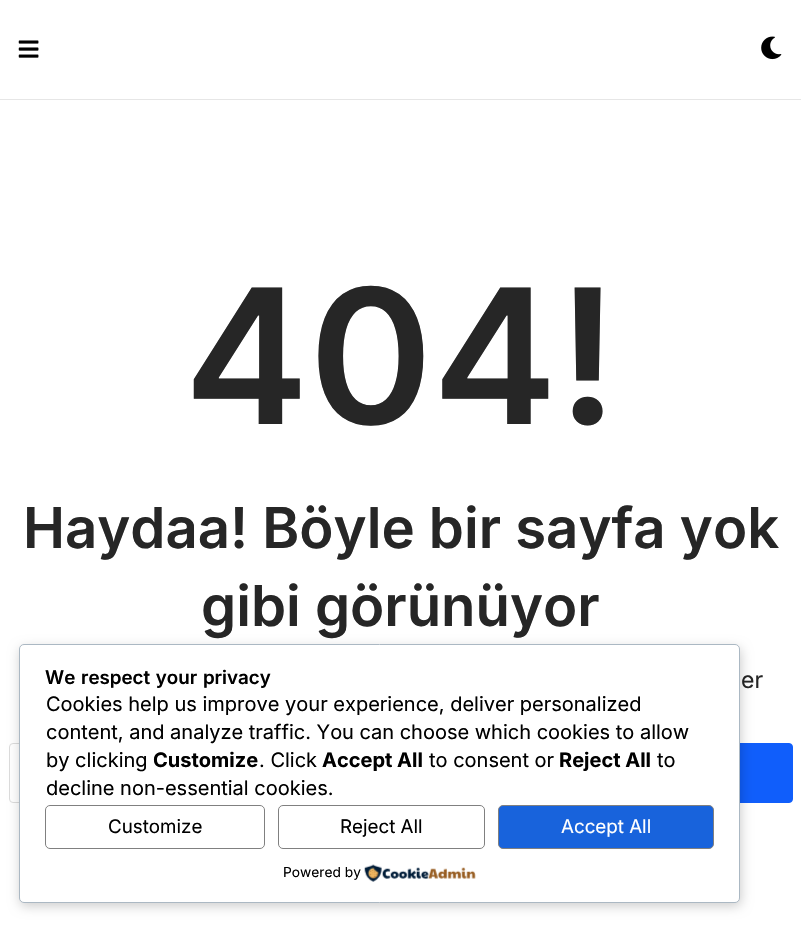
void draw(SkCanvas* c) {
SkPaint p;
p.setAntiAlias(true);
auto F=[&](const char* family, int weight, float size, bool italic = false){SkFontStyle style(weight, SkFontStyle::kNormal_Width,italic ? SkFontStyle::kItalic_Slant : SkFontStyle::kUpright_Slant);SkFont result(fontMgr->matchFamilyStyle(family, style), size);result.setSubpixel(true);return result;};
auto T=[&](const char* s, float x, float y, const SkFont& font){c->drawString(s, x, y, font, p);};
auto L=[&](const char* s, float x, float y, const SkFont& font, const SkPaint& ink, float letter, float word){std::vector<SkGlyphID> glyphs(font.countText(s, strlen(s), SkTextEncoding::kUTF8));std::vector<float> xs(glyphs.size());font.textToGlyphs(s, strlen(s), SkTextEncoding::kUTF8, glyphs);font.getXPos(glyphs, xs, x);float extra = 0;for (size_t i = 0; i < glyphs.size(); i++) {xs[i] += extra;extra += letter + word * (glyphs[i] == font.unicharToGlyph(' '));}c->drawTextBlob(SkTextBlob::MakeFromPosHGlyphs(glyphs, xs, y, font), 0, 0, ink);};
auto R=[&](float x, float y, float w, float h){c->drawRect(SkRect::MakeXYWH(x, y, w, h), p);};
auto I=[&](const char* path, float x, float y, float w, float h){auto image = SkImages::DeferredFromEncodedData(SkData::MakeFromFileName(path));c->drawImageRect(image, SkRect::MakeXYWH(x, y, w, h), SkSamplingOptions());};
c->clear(0xffffffff);
p.setColor(0xffe6e6e6);
R(0,99,801,1);
I("1.png",18,40,21,18);
I("2.png",761,36,21,24);
auto f1 = F("Inter",600,187.5);
p.setColor(0xff262626);
T("404!",184,424,f1);
auto f2 = F("Inter",600,56.25);
T("Haydaa! Böyle bir sayfa yok",23,548,f2);
T("gibi görünüyor",201,626,f2);
auto f3 = F("Inter",400,23);
T("er",741,688,f3);
p.setStroke(true);
p.setStrokeWidth(1);
p.setColor(0xffdcdcdc);
c->drawRoundRect(SkRect::MakeXYWH(9.5,743.5,591,59),3.5,3.5,p);
p.setStroke(false);
p.setColor(0xff105efb);
c->drawRoundRect(SkRect::MakeXYWH(606.5,743.5,186,59),3.5,3.5,p);
p.setStroke(true);
c->drawRoundRect(SkRect::MakeXYWH(606.5,743.5,186,59),3.5,3.5,p);
p.setStroke(false);
p.setColor(0x33000000);
p.setMaskFilter(SkMaskFilter::MakeBlur(kNormal_SkBlurStyle, 6));
c->drawRoundRect(SkRect::MakeXYWH(20,648,721,258),5,5,p);
p.setMaskFilter(nullptr);
p.setColor(0xffffffff);
c->drawRoundRect(SkRect::MakeXYWH(19.5,644.5,720,258),4.5,4.5,p);
p.setStroke(true);
p.setColor(0xffabb8c3);
c->drawRoundRect(SkRect::MakeXYWH(19.5,644.5,720,258),4.5,4.5,p);
auto f4 = F("Inter",600,18.75);
p.setStroke(false);
p.setColor(0xff000000);
L("We respect your privacy",45,684,f4,p,0,1);
auto f5 = F("Inter",400,20);
T("Cookies help us improve your experience, deliver personalized",46,711,f5);
T("content, and analyze traffic. You can choose which cookies to allow",46,739,f5);
T("by clicking",46,767,f5);
auto f6 = F("Inter",700,20);
T("Customize",153,767,f6);
T(". Click",259,767,f5);
T("Accept All",322,767,f6);
T("to consent or",429,767,f5);
T("Reject All",559,767,f6);
T("to",657,767,f5);
T("decline non-essential cookies.",46,795,f5);
p.setStroke(true);
p.setColor(0xff808080);
c->drawRoundRect(SkRect::MakeXYWH(45.5,805.5,219,43),4.5,4.5,p);
auto f7 = F("Inter",400,18.75);
p.setStroke(false);
p.setColor(0xff000000);
T("Customize",108,833,f7);
p.setStroke(true);
p.setColor(0xff808080);
c->drawRoundRect(SkRect::MakeXYWH(278.5,805.5,206,43),4.5,4.5,p);
p.setStroke(false);
p.setColor(0xff000000);
T("Reject All",340,833,f7);
p.setColor(0xff1863dc);
c->drawRoundRect(SkRect::MakeXYWH(498.5,805.5,215,43),4.5,4.5,p);
p.setStroke(true);
p.setColor(0xff808080);
c->drawRoundRect(SkRect::MakeXYWH(498.5,805.5,215,43),4.5,4.5,p);
p.setStroke(false);
p.setColor(0xffffffff);
T("Accept All",561,833,f7);
auto f8 = F("Inter",400,13.75);
p.setColor(0xff000000);
T("Powered by",283,877,f8);
I("3.png",364,864,112,18);
}
